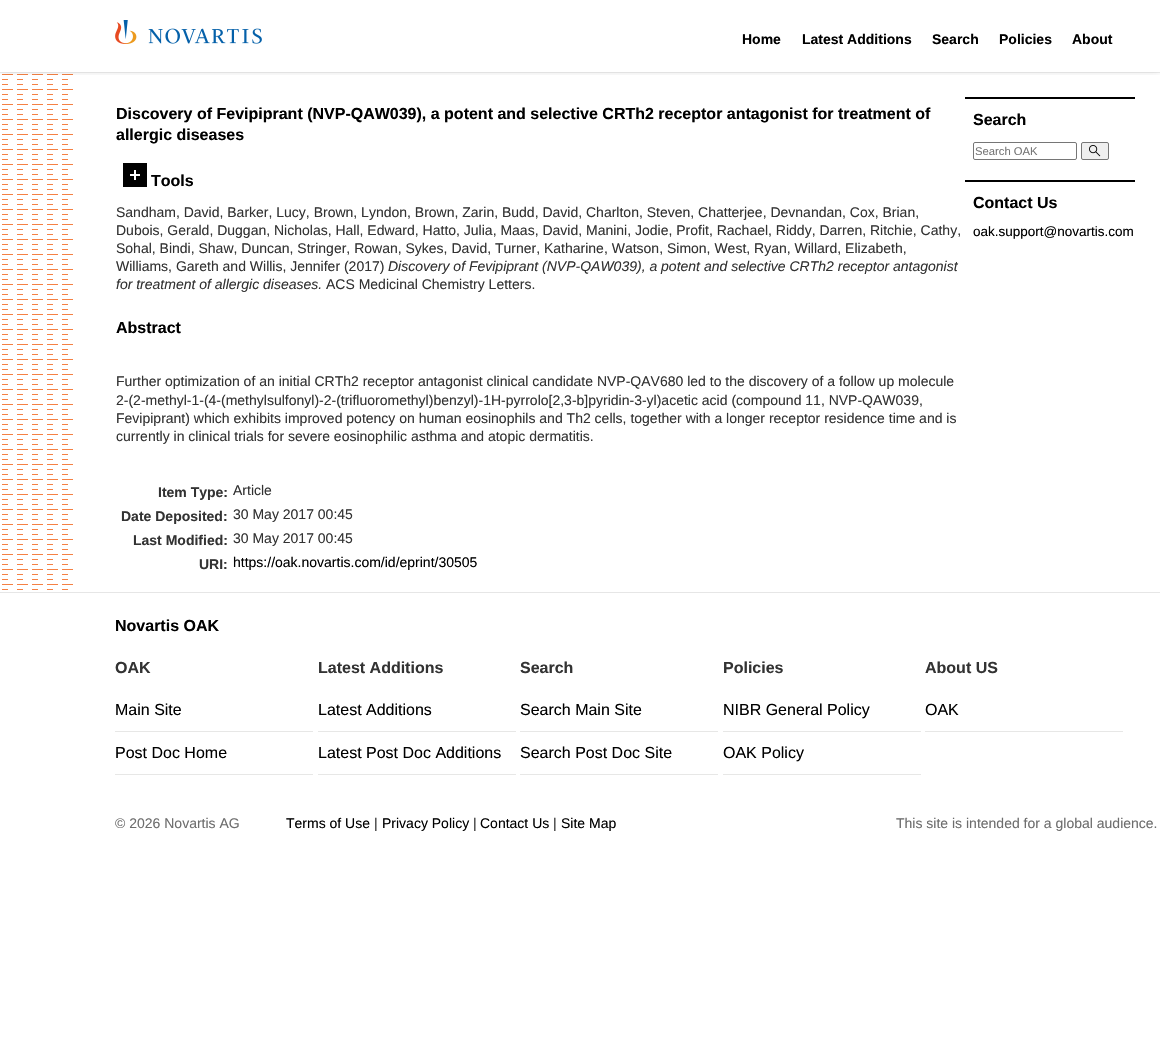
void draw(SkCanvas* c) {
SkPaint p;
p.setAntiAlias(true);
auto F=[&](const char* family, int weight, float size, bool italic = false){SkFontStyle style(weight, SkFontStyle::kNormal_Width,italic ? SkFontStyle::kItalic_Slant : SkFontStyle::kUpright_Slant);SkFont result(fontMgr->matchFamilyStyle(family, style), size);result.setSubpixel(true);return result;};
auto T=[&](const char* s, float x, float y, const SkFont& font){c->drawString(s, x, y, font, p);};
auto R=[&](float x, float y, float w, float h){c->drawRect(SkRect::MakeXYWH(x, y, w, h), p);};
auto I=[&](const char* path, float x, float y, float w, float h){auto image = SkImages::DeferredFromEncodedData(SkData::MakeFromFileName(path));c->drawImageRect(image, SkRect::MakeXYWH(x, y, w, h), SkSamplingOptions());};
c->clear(0xffffffff);
p.setColor(0xffededed);
R(0,72,1160,1);
I("2.png",2,74,71,516);
c->save();
c->clipRect(SkRect::MakeXYWH(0,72,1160,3));
p.setColor(0x1a000000);
p.setMaskFilter(SkMaskFilter::MakeBlur(kNormal_SkBlurStyle, 4));
c->drawRect(SkRect::MakeXYWH(0,0,1160,72),p);
p.setMaskFilter(nullptr);
c->restore();
I("1.png",115,20,147,24);
auto f1 = F("Liberation Sans",700,14);
p.setColor(0xff000000);
T("Home",742,44,f1);
T("Latest Additions",802,44,f1);
T("Search",932,44,f1);
T("Policies",999,44,f1);
T("About",1072,44,f1);
auto f2 = F("Liberation Sans",700,16);
T("Discovery of Fevipiprant (NVP-QAW039), a potent and selective CRTh2 receptor antagonist for treatment of",116,119,f2);
T("allergic diseases",116,140,f2);
I("3.png",123,163,24,24);
T("Tools",151,186,f2);
auto f3 = F("Liberation Sans",400,14);
p.setColor(0xff333333);
T("Sandham, David, Barker, Lucy, Brown, Lyndon, Brown, Zarin, Budd, David, Charlton, Steven, Chatterjee, Devnandan, Cox, Brian,",116,217,f3);
T("Dubois, Gerald, Duggan, Nicholas, Hall, Edward, Hatto, Julia, Maas, David, Manini, Jodie, Profit, Rachael, Riddy, Darren, Ritchie, Cathy,",116,235,f3);
T("Sohal, Bindi, Shaw, Duncan, Stringer, Rowan, Sykes, David, Turner, Katharine, Watson, Simon, West, Ryan, Willard, Elizabeth,",116,253,f3);
T("Williams, Gareth and Willis, Jennifer (2017)",116,271,f3);
auto f4 = F("Liberation Sans",400,14,true);
T("Discovery of Fevipiprant (NVP-QAW039), a potent and selective CRTh2 receptor antagonist",388,271,f4);
T("for treatment of allergic diseases.",116,289,f4);
T("ACS Medicinal Chemistry Letters.",326,289,f3);
p.setColor(0xff000000);
T("Abstract",116,333,f2);
p.setColor(0xff333333);
T("Further optimization of an initial CRTh2 receptor antagonist clinical candidate NVP-QAV680 led to the discovery of a follow up molecule",116,386,f3);
T("2-(2-methyl-1-(4-(methylsulfonyl)-2-(trifluoromethyl)benzyl)-1H-pyrrolo[2,3-b]pyridin-3-yl)acetic acid (compound 11, NVP-QAW039,",116,405,f3);
T("Fevipiprant) which exhibits improved potency on human eosinophils and Th2 cells, together with a longer receptor residence time and is",116,423,f3);
T("currently in clinical trials for severe eosinophilic asthma and atopic dermatitis.",116,441,f3);
T("Item Type:",158,497,f1);
T("Article",233,495,f3);
T("Date Deposited:",121,521,f1);
T("30 May 2017 00:45",233,519,f3);
T("Last Modified:",133,545,f1);
T("30 May 2017 00:45",233,543,f3);
T("URI:",199,569,f1);
p.setColor(0xff000000);
T("https://oak.novartis.com/id/eprint/30505",233,567,f3);
R(965,97,170,2);
T("Search",973,125,f2);
p.setStroke(true);
p.setStrokeWidth(1);
p.setColor(0xff767676);
c->drawRoundRect(SkRect::MakeXYWH(973.5,142.5,103,17),1.5,1.5,p);
auto f5 = F("Liberation Sans",400,11.25);
p.setStroke(false);
p.setColor(0xff757575);
T("Search OAK",975,155,f5);
p.setColor(0xffefefef);
c->drawRoundRect(SkRect::MakeXYWH(1081.5,142.5,27,17),1.5,1.5,p);
p.setStroke(true);
p.setColor(0xff767676);
c->drawRoundRect(SkRect::MakeXYWH(1081.5,142.5,27,17),1.5,1.5,p);
I("4.png",1089,145,12,12);
p.setStroke(false);
p.setColor(0xff000000);
R(965,180,170,2);
T("Contact Us",973,208,f2);
auto f6 = F("Liberation Sans",400,13.5);
T("oak.support@novartis.com",973,236,f6);
p.setColor(0xffe6e6e6);
R(0,592,1160,1);
p.setColor(0xff000000);
T("Novartis OAK",115,631,f2);
p.setColor(0xff333333);
T("OAK",115,673,f2);
T("Latest Additions",318,673,f2);
T("Search",520,673,f2);
T("Policies",723,673,f2);
T("About US",925,673,f2);
p.setColor(0xffe7e7e6);
R(115,731,198,1);
auto f7 = F("Liberation Sans",400,16);
p.setColor(0xff000000);
T("Main Site",115,715,f7);
p.setColor(0xffe7e7e6);
R(318,731,198,1);
p.setColor(0xff000000);
T("Latest Additions",318,715,f7);
p.setColor(0xffe7e7e6);
R(520,731,198,1);
p.setColor(0xff000000);
T("Search Main Site",520,715,f7);
p.setColor(0xffe7e7e6);
R(723,731,198,1);
p.setColor(0xff000000);
T("NIBR General Policy",723,715,f7);
p.setColor(0xffe7e7e6);
R(925,731,198,1);
p.setColor(0xff000000);
T("OAK",925,715,f7);
p.setColor(0xffe7e7e6);
R(115,774,198,1);
p.setColor(0xff000000);
T("Post Doc Home",115,758,f7);
p.setColor(0xffe7e7e6);
R(318,774,198,1);
p.setColor(0xff000000);
T("Latest Post Doc Additions",318,758,f7);
p.setColor(0xffe7e7e6);
R(520,774,198,1);
p.setColor(0xff000000);
T("Search Post Doc Site",520,758,f7);
p.setColor(0xffe7e7e6);
R(723,774,198,1);
p.setColor(0xff000000);
T("OAK Policy",723,758,f7);
p.setColor(0xff6d6d6d);
T("© 2026 Novartis AG",115,828,f3);
p.setColor(0xff000000);
T("Terms of Use",286,828,f3);
p.setColor(0xff333333);
T("|",374,828,f3);
p.setColor(0xff000000);
T("Privacy Policy",382,828,f3);
p.setColor(0xff333333);
T("|",473,828,f3);
p.setColor(0xff000000);
T("Contact Us",480,828,f3);
p.setColor(0xff333333);
T("|",553,828,f3);
p.setColor(0xff000000);
T("Site Map",561,828,f3);
p.setColor(0xff6d6d6d);
T("This site is intended for a global audience.",896,828,f3);
}
